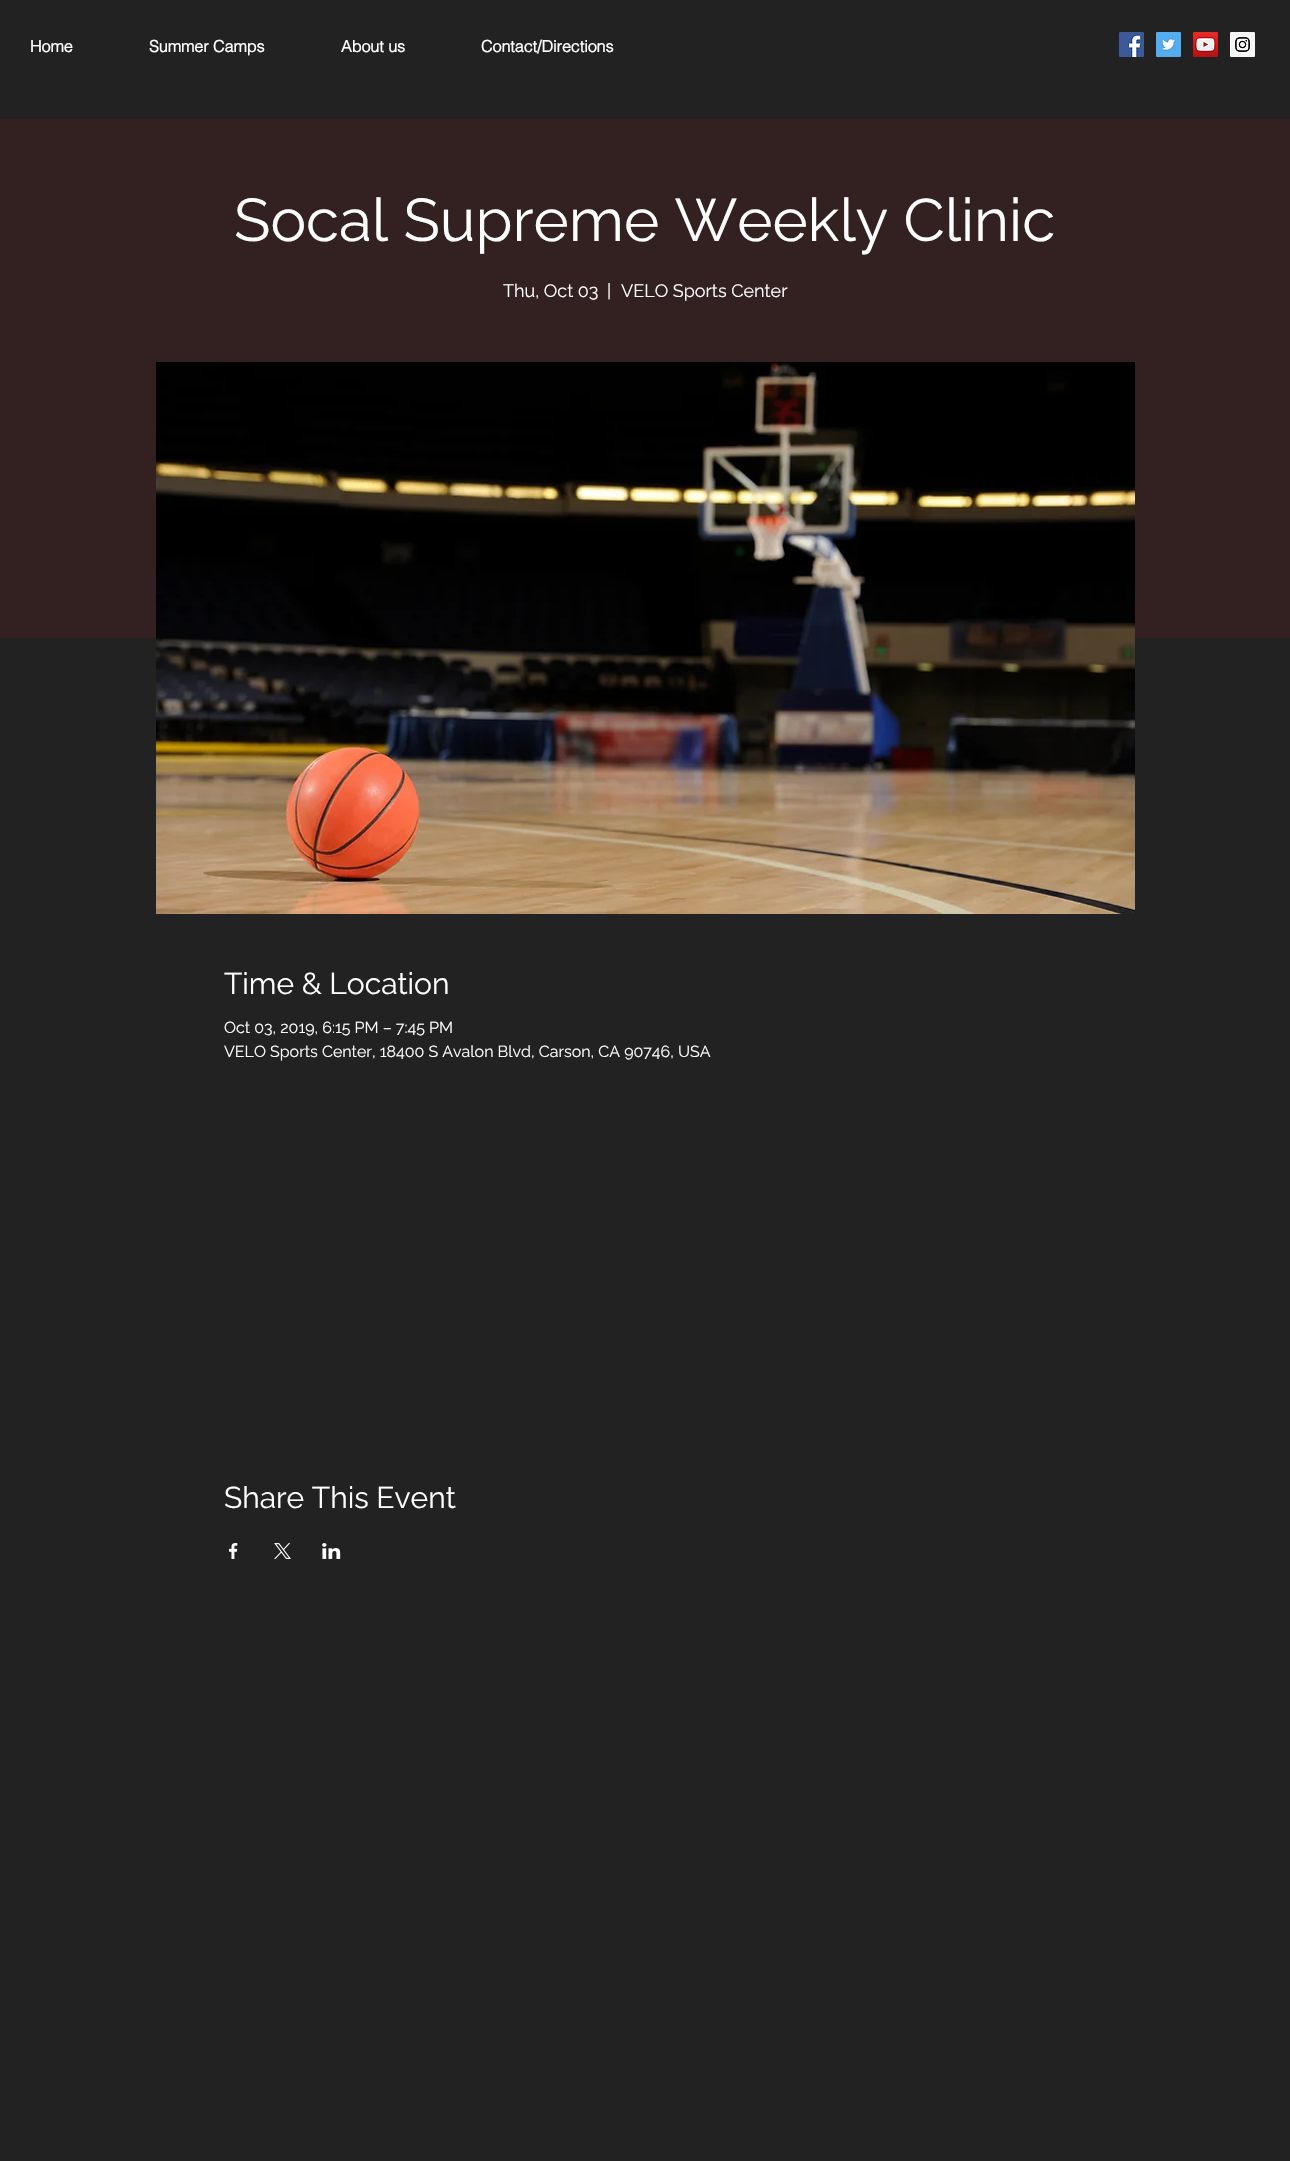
void draw(SkCanvas* c) {
SkPaint p;
p.setAntiAlias(true);
auto F=[&](const char* family, int weight, float size, bool italic = false){SkFontStyle style(weight, SkFontStyle::kNormal_Width,italic ? SkFontStyle::kItalic_Slant : SkFontStyle::kUpright_Slant);SkFont result(fontMgr->matchFamilyStyle(family, style), size);result.setSubpixel(true);return result;};
auto T=[&](const char* s, float x, float y, const SkFont& font){c->drawString(s, x, y, font, p);};
auto R=[&](float x, float y, float w, float h){c->drawRect(SkRect::MakeXYWH(x, y, w, h), p);};
auto I=[&](const char* path, float x, float y, float w, float h){auto image = SkImages::DeferredFromEncodedData(SkData::MakeFromFileName(path));c->drawImageRect(image, SkRect::MakeXYWH(x, y, w, h), SkSamplingOptions());};
c->clear(0xff222222);
auto f1 = F("helvetica",700,16);
p.setColor(0xffffffff);
T("Home",30,52,f1);
T("Summer Camps",149,52,f1);
T("About us",341,52,f1);
T("Contact/Directions",481,52,f1);
I("1.png",1119,32,25,25);
I("2.png",1156,32,25,25);
I("3.png",1193,32,25,25);
I("4.png",1230,32,25,25);
p.setColor(0xff332122);
R(0,119,1290,519);
auto f2 = F("Raleway",400,60);
p.setColor(0xffffffff);
T("Socal Supreme Weekly Clinic",234,241,f2);
auto f3 = F("Raleway",400,18);
T("Thu, Oct 03",503,297,f3);
T("|",607,297,f3);
T("VELO Sports Center",621,297,f3);
I("5.png",156,362,979,552);
auto f4 = F("Raleway",400,30);
T("Time & Location",224,994,f4);
auto f5 = F("Raleway",400,16);
T("Oct 03, 2019, 6:15 PM – 7:45 PM",224,1033,f5);
T("VELO Sports Center, 18400 S Avalon Blvd, Carson, CA 90746, USA",224,1057,f5);
T("Share This Event",224,1508,f4);
I("6.png",229,1543,9,16);
I("7.png",274,1543,17,16);
I("8.png",322,1543,19,16);
}
